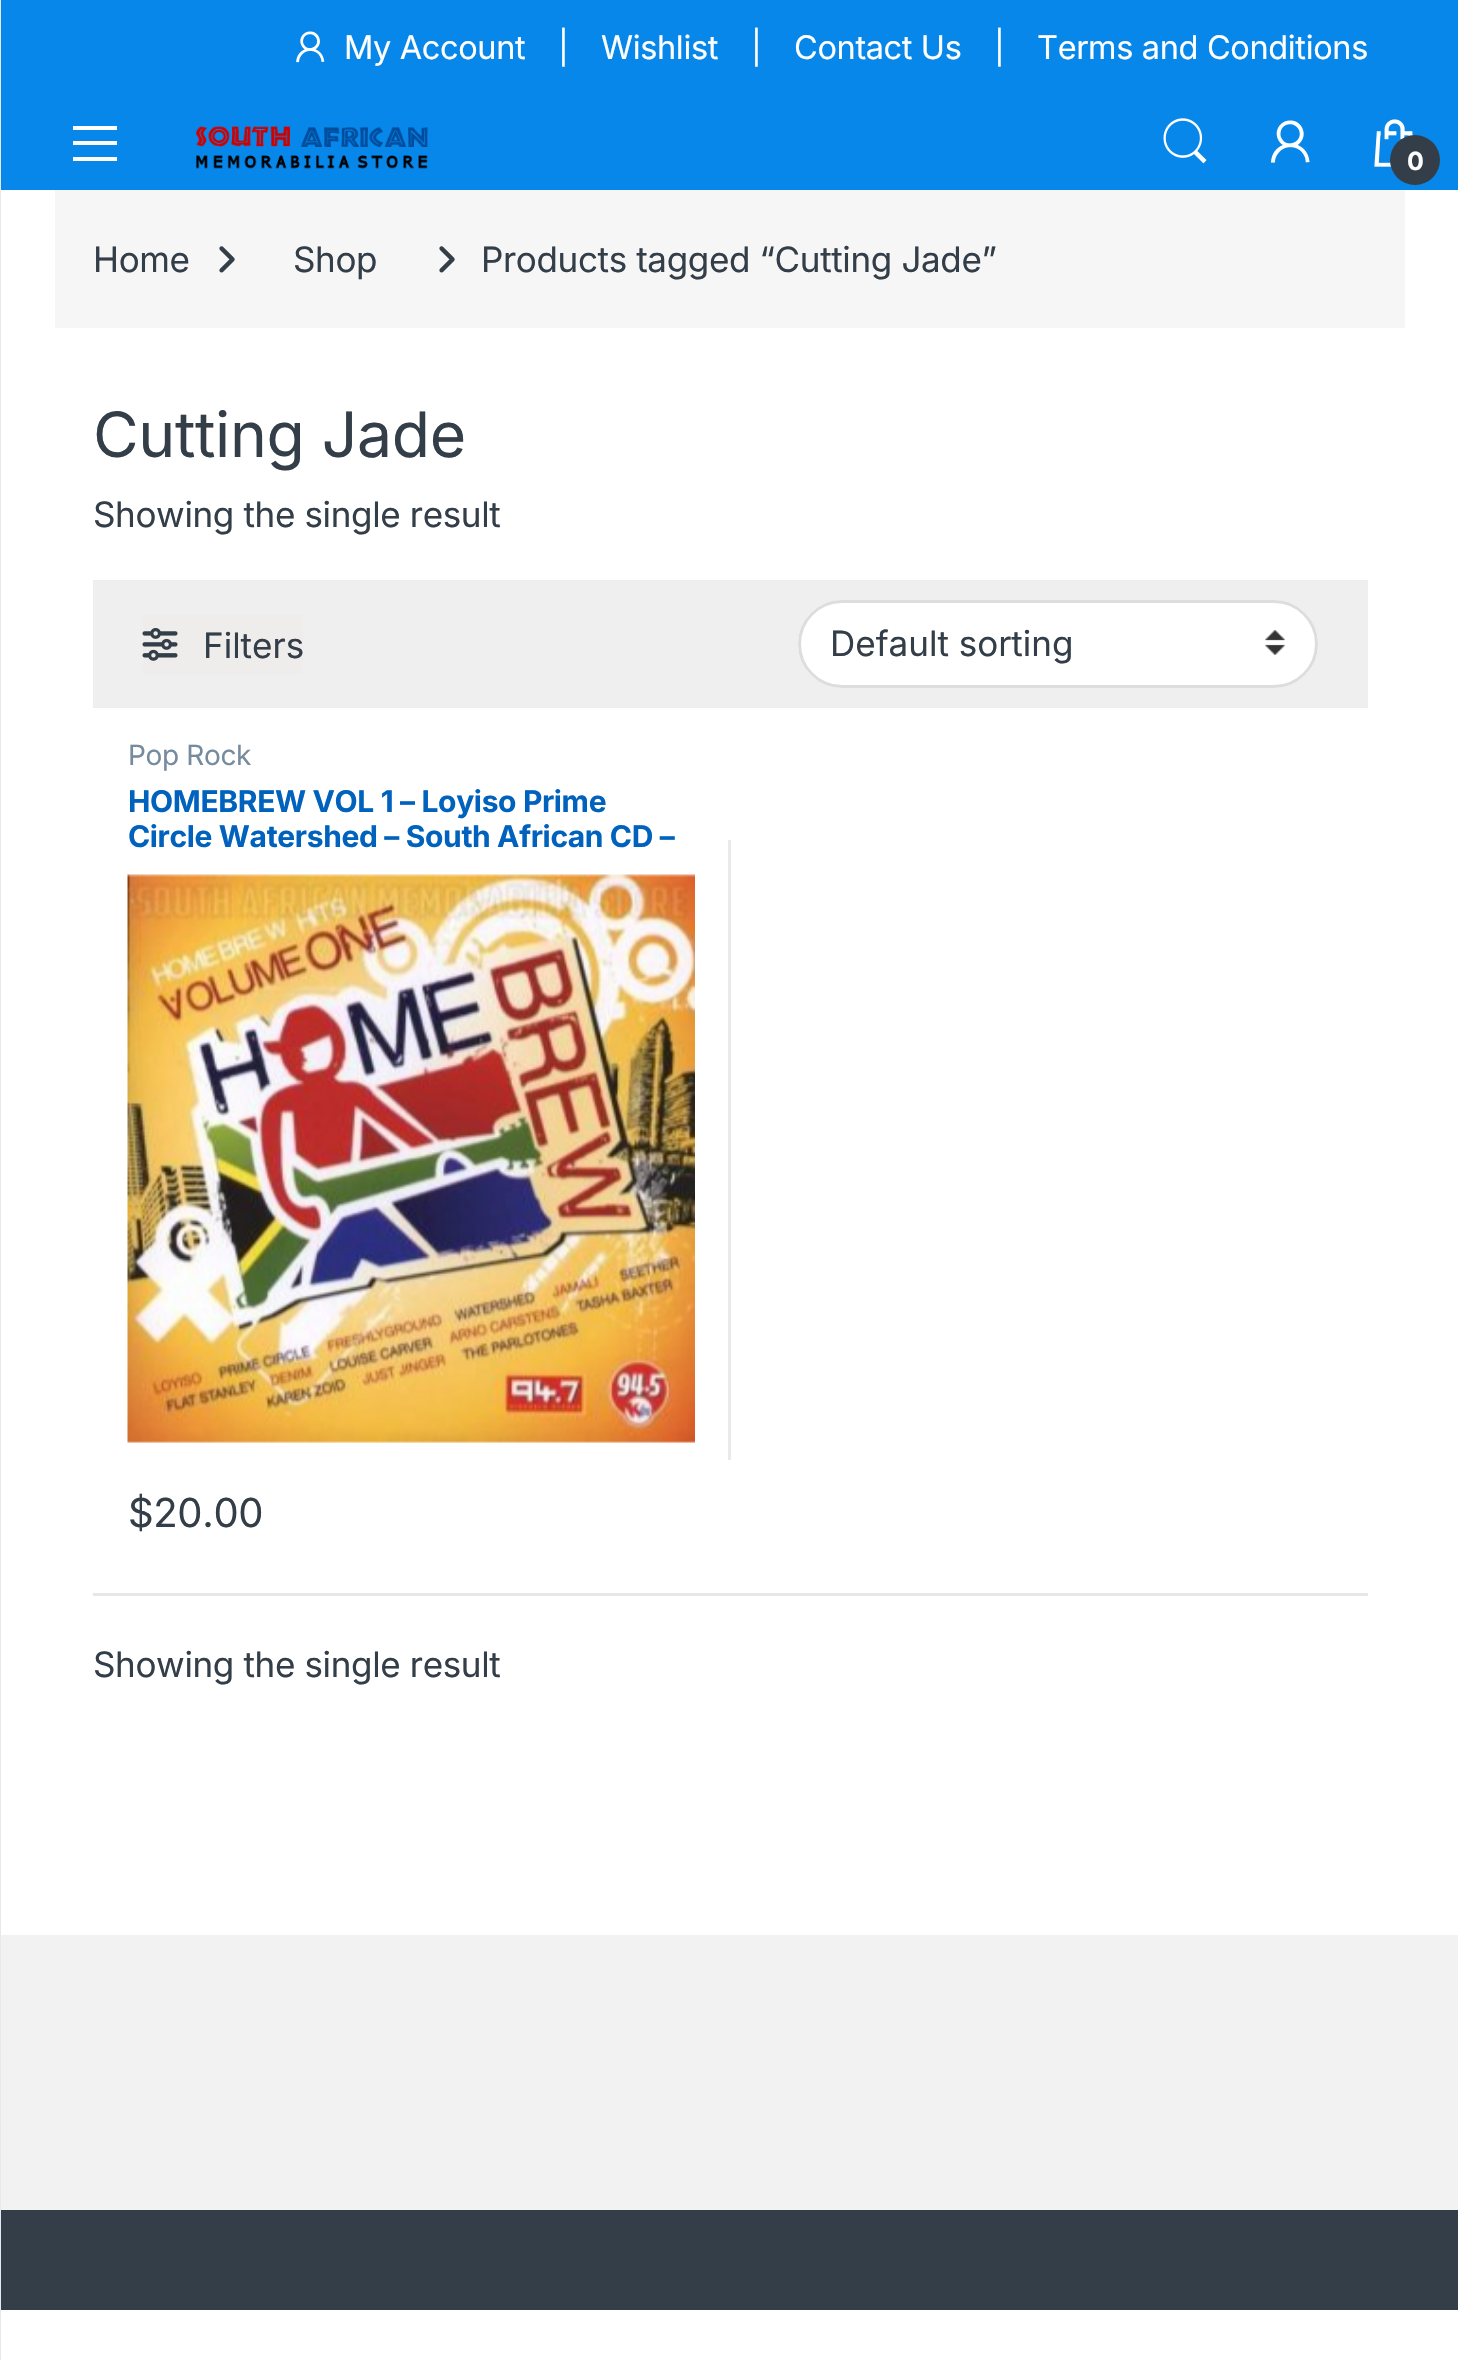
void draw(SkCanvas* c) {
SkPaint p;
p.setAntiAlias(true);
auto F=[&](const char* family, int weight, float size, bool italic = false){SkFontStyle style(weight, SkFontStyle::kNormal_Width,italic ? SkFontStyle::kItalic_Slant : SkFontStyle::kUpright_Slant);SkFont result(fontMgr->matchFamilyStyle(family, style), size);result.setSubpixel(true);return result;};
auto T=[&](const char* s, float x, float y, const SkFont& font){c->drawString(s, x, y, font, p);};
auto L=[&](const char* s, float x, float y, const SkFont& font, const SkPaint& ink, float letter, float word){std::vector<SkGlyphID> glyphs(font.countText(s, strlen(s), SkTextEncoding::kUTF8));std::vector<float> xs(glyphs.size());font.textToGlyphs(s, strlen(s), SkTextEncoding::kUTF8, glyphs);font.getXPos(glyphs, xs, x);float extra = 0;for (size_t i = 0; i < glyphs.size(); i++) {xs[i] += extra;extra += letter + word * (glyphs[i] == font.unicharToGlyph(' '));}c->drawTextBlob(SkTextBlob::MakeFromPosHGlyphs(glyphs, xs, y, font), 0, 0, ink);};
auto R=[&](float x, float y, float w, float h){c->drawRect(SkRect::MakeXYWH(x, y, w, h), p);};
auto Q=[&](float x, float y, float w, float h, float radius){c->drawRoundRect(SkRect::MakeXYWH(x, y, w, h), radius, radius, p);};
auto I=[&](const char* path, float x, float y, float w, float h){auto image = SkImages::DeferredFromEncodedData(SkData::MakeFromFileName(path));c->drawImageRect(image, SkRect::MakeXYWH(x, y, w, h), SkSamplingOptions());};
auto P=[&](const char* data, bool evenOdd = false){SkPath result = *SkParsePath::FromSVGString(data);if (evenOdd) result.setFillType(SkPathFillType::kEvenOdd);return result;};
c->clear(0xffffffff);
p.setColor(0xff0787ea);
R(1,0,1457,190);
I("1.png",296,31,29,32);
auto f1 = F("Inter",400,32.5);
p.setColor(0xffffffff);
L("My Account",344,59,f1,p,-.35,0);
L("|",558,59,f1,p,-.35,0);
L("Wishlist",601,59,f1,p,-.35,0);
L("|",751,59,f1,p,-.35,0);
L("Contact Us",794,59,f1,p,-.35,0);
L("|",994,59,f1,p,-.35,0);
L("Terms and Conditions",1037,59,f1,p,-.35,0);
p.setColor(0xffe3e9ef);
R(0,0,1,2360);
p.setColor(0xffffffff);
c->drawPath(P("M73 161v-4h44v4zm0-20h44v4h-44zm0-15h44v4h-44z"),p);
I("2.png",196,126,232,43);
I("3.png",1163,118,44,46);
I("4.png",1271,120,39,43);
I("5.png",1374,119,39,48);
p.setColor(0xff333e48);
c->drawCircle(1415,160,25,p);
auto f2 = F("Inter",700,25);
p.setColor(0xffffffff);
L("0",1407,170,f2,p,-.35,0);
p.setColor(0xfff7f6f6);
R(55,190,1350,138);
auto f3 = F("Inter",400,35);
p.setColor(0xff333e48);
L("Home",93,272,f3,p,-.35,0);
I("6.png",219,246,16,27);
L("Shop",293,272,f3,p,-.35,0);
I("6.png",439,246,16,27);
L("Products tagged “Cutting Jade”",481,272,f3,p,-.35,0);
auto f4 = F("Inter",400,62.5);
L("Cutting Jade",93,457,f4,p,-.35,0);
L("Showing the single result",93,527,f3,p,-.35,0);
p.setColor(0xffefefef);
R(93,580,1275,128);
p.setColor(0xffefecec);
R(143,615,160,60);
I("7.png",142,628,36,33);
p.setColor(0xff333e48);
T("Filters",203,658,f3);
p.setColor(0xffffffff);
Q(798,600,520,88,44);
I("8.png",1265,630,20,25);
p.setStroke(true);
p.setStrokeWidth(3);
p.setColor(0xffdddddd);
c->drawRoundRect(SkRect::MakeXYWH(799.5,601.5,517,85),42.5,42.5,p);
p.setStroke(false);
p.setColor(0xff333e48);
T("Default sorting",830,656,f3);
auto f5 = F("Inter",400,28);
p.setColor(0xff768b9e);
L("Pop Rock",128,765,f5,p,-.35,0);
auto f6 = F("Inter",700,30);
p.setColor(0xff0062bd);
L("HOMEBREW VOL 1 – Loyiso Prime",128,812,f6,p,-.35,0);
L("Circle Watershed – South African CD –",128,847,f6,p,-.35,0);
I("9.png",127,874,568,569);
auto f7 = F("Inter",400,40);
p.setColor(0xff333e48);
L("$20.00",128,1527,f7,p,-.35,0);
p.setColor(0xffeaeaea);
R(728,840,3,620);
p.setColor(0xffe7e7e7);
R(93,1593,1275,3);
p.setColor(0xff333e48);
L("Showing the single result",93,1677,f3,p,-.35,0);
p.setColor(0xfff2f2f2);
R(1,1935,1457,275);
p.setColor(0xff333e48);
R(1,2210,1457,100);
}
